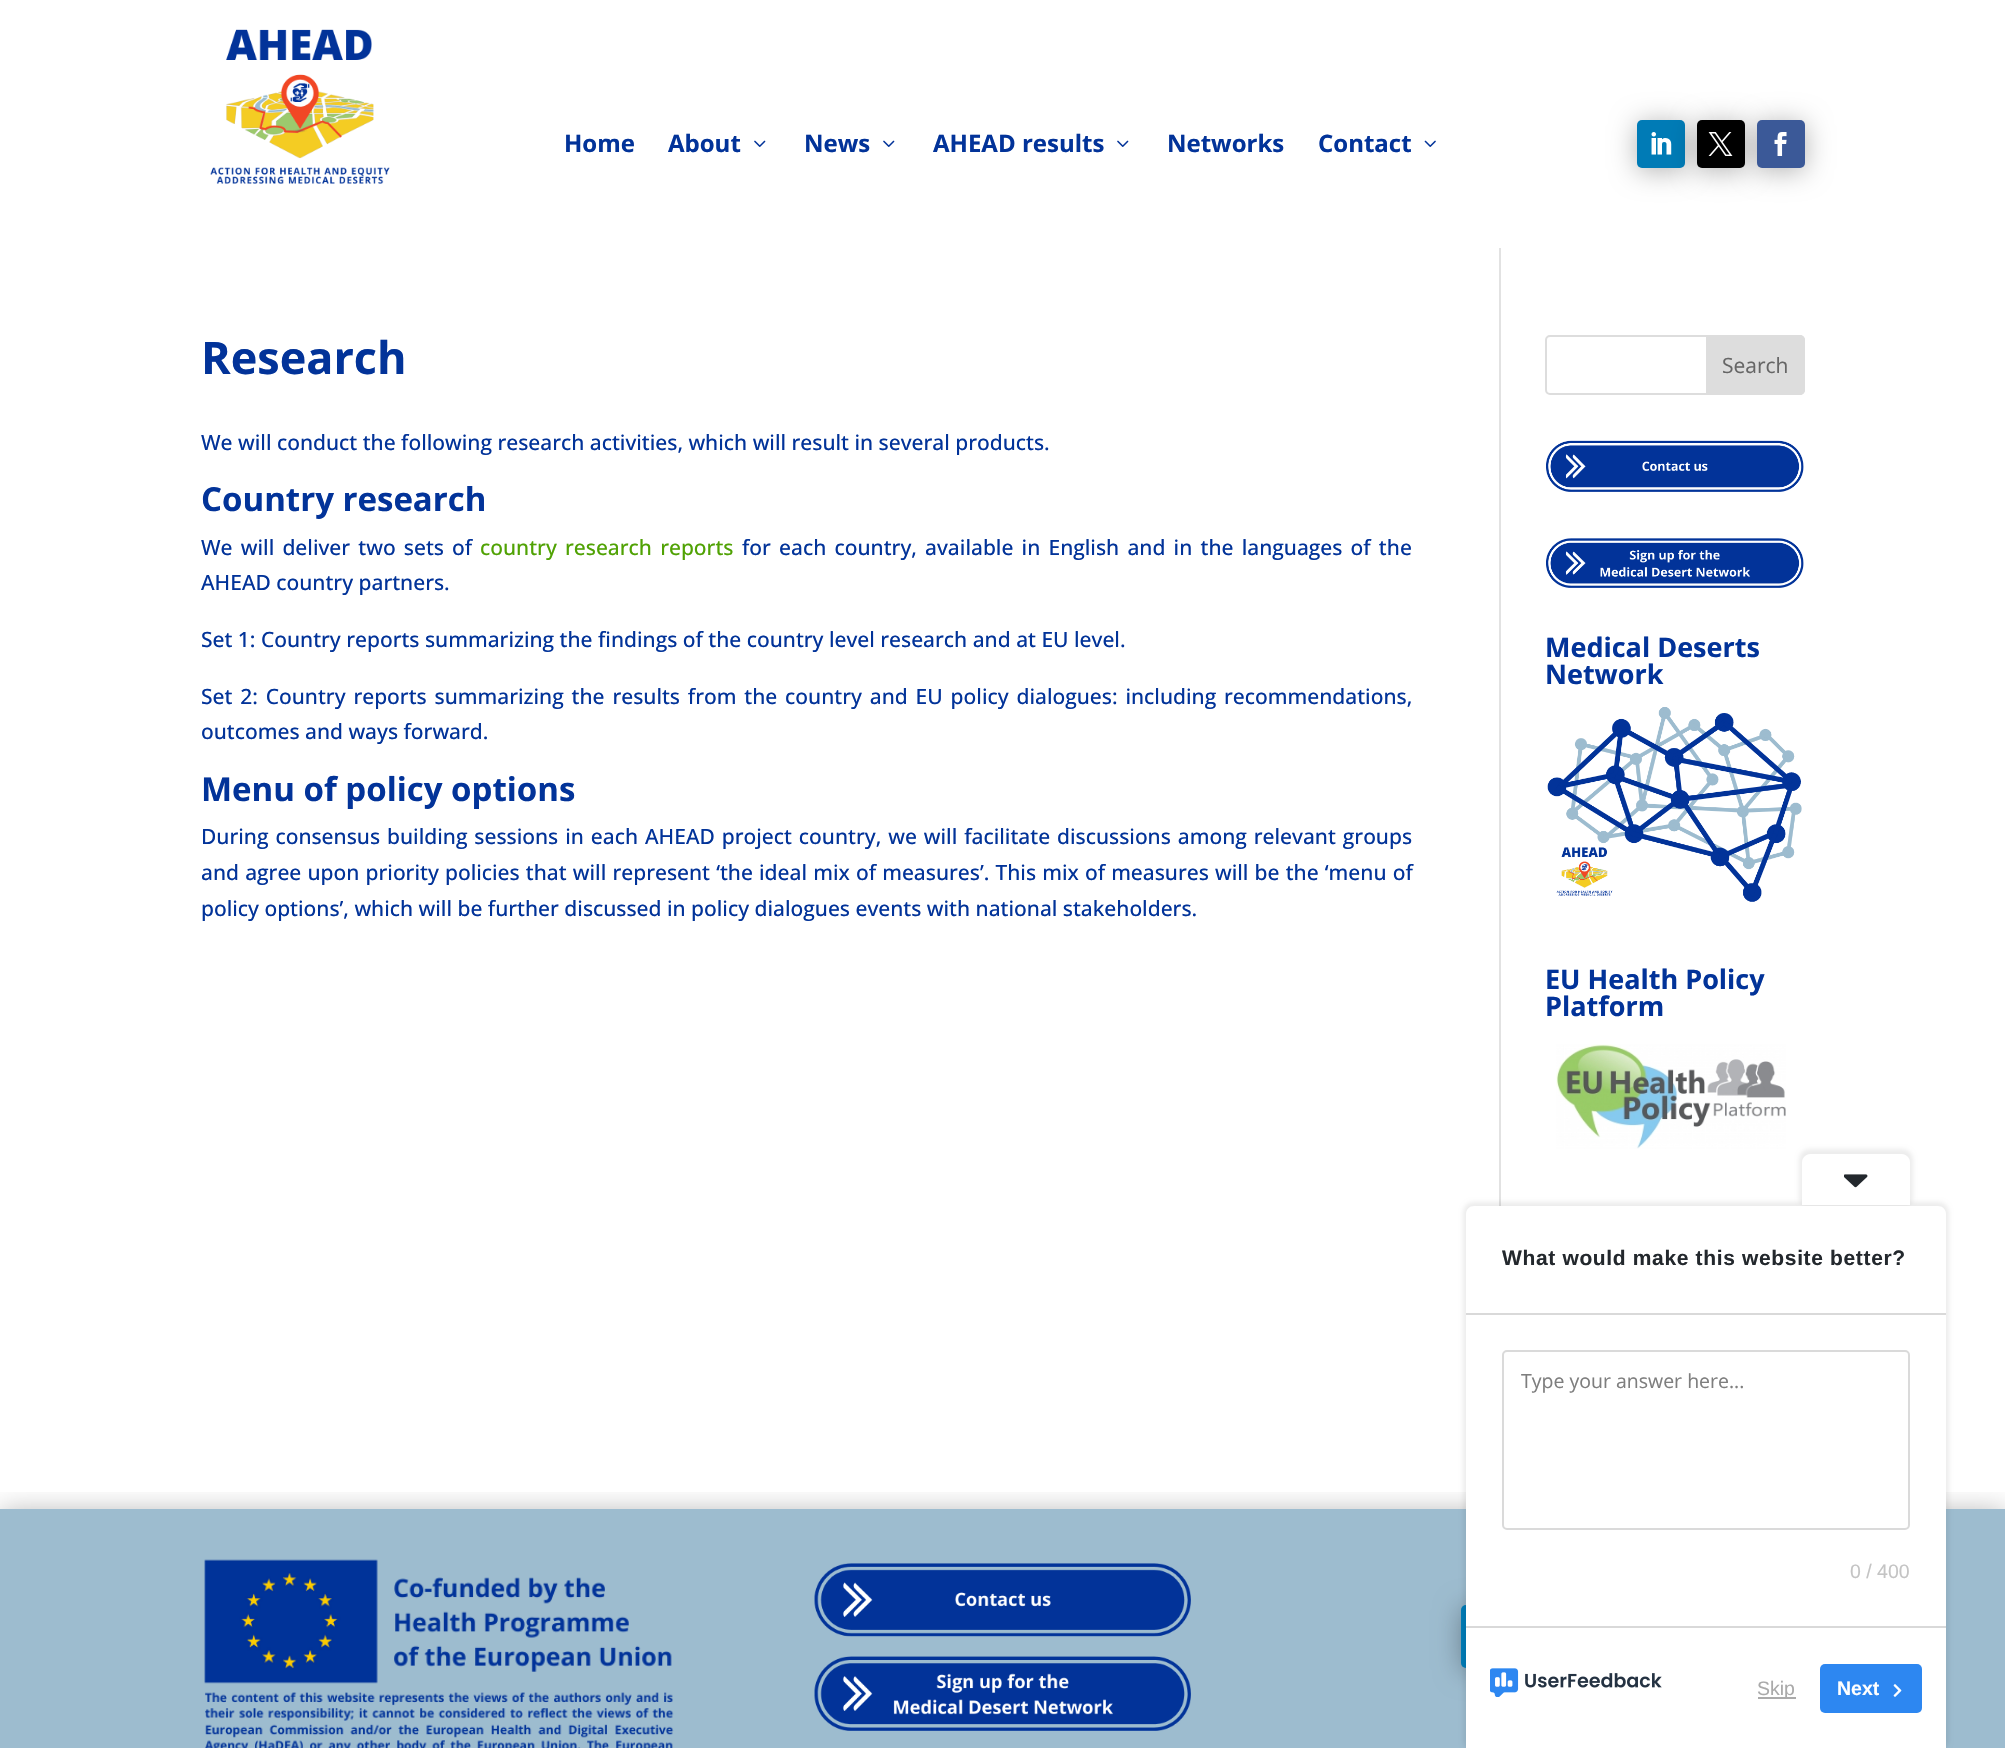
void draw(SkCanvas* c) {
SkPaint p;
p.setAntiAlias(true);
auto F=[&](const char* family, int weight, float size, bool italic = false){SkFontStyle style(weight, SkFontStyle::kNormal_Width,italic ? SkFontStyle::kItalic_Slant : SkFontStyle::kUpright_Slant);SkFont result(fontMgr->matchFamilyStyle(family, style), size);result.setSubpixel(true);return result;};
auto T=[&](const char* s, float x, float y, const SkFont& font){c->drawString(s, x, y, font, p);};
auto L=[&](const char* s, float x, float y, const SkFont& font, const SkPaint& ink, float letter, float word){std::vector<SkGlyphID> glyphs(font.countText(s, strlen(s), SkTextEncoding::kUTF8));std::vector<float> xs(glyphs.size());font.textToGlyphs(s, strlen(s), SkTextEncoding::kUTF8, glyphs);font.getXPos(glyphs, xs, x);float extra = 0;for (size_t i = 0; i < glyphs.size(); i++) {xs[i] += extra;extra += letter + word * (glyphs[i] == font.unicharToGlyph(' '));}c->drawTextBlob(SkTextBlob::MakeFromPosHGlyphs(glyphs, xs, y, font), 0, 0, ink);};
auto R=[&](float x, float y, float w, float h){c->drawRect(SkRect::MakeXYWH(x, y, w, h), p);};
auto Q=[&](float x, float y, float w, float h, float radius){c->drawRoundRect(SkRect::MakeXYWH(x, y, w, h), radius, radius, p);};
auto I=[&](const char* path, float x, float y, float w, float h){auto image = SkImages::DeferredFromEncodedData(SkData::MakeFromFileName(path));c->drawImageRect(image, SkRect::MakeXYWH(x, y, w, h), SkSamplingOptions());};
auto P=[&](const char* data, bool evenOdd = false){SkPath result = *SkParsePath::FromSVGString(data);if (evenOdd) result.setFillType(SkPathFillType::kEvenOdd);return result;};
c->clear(0xff9dbccf);
p.setColor(0xffffffff);
R(0,0,2005,1509);
I("1.png",210,29,180,155);
auto f1 = F("Open Sans",700,24);
p.setColor(0xff023399);
T("Home",564,152,f1);
T("About",668,152,f1);
I("2.png",754,140,12,7);
T("News",804,152,f1);
I("2.png",883,140,12,7);
T("AHEAD results",933,152,f1);
I("2.png",1117,140,12,7);
T("Networks",1167,152,f1);
T("Contact",1318,152,f1);
I("3.png",1424,140,12,7);
p.setColor(0x4d000000);
p.setMaskFilter(SkMaskFilter::MakeBlur(kNormal_SkBlurStyle, 13.5));
c->drawRoundRect(SkRect::MakeXYWH(1637,123,48,48),5,5,p);
p.setMaskFilter(nullptr);
p.setColor(0xff007bb6);
Q(1637,120,48,48,5);
p.setColor(0x4d000000);
p.setMaskFilter(SkMaskFilter::MakeBlur(kNormal_SkBlurStyle, 13.5));
c->drawRoundRect(SkRect::MakeXYWH(1697,123,48,48),5,5,p);
p.setMaskFilter(nullptr);
I("4.png",1651,132,21,23);
p.setColor(0xff000000);
Q(1697,120,48,48,5);
p.setColor(0x4d000000);
p.setMaskFilter(SkMaskFilter::MakeBlur(kNormal_SkBlurStyle, 13.5));
c->drawRoundRect(SkRect::MakeXYWH(1757,123,48,48),5,5,p);
p.setMaskFilter(nullptr);
I("5.png",1708,132,25,24);
p.setColor(0xff3b5998);
Q(1757,120,48,48,5);
I("6.png",1774,132,13,24);
p.setColor(0xffe2e2e2);
R(1499,248,2,958);
auto f2 = F("Open Sans",700,45);
p.setColor(0xff023399);
T("Research",201,374,f2);
auto f3 = F("Open Sans",500,21);
T("We will conduct the following research activities, which will result in several products.",201,450,f3);
auto f4 = F("Open Sans",700,33);
T("Country research",201,511,f4);
L("We will deliver two sets of",201,555,f3,p,0,2.75);
p.setColor(0xff50a204);
L("country research reports",480,555,f3,p,0,2.75);
p.setColor(0xff023399);
L("for each country, available in English and in the languages of the",742,555,f3,p,0,2.75);
T("AHEAD country partners.",201,590,f3);
T("Set 1: Country reports summarizing the findings of the country level research and at EU level.",201,647,f3);
L("Set 2: Country reports summarizing the results from the country and EU policy dialogues: including recommendations,",201,704,f3,p,0,2.4);
T("outcomes and ways forward.",201,739,f3);
T("Menu of policy options",201,801,f4);
L("During consensus building sessions in each AHEAD project country, we will facilitate discussions among relevant groups",201,844,f3,p,0,1.5);
L("and agree upon priority policies that will represent ‘the ideal mix of measures’. This mix of measures will be the ‘menu of",201,880,f3,p,0,.7);
T("policy options’, which will be further discussed in policy dialogues events with national stakeholders.",201,916,f3);
p.setStroke(true);
p.setStrokeWidth(2);
p.setColor(0xffdddddd);
c->drawRoundRect(SkRect::MakeXYWH(1546,336,258,58),4,4,p);
p.setStroke(false);
c->drawPath(P("M1707 336h93c2 0 4 2 4 4v50c0 2-2 4-4 4h-93z"),p);
p.setStroke(true);
c->drawPath(P("M1707 336h93c2 0 4 2 4 4v50c0 2-2 4-4 4h-93z"),p);
auto f5 = F("Open Sans",400,21);
p.setStroke(false);
p.setColor(0xff666666);
T("Search",1722,373,f5);
I("7.png",1546,440,258,52);
I("8.png",1546,538,258,50);
auto f6 = F("Open Sans",700,27);
p.setColor(0xff023399);
T("Medical Deserts",1545,657,f6);
T("Network",1545,684,f6);
I("9.png",1547,707,255,195);
T("EU Health Policy",1545,989,f6);
T("Platform",1545,1016,f6);
I("10.png",1556,1044,230,105);
c->save();
c->clipRect(SkRect::MakeXYWH(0,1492,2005,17));
p.setColor(0x4d000000);
p.setMaskFilter(SkMaskFilter::MakeBlur(kNormal_SkBlurStyle, 13.5));
c->drawRect(SkRect::MakeXYWH(0,1512,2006,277),p);
p.setMaskFilter(nullptr);
c->restore();
I("11.png",204,1559,470,189);
I("12.png",814,1563,377,74);
I("13.png",814,1656,377,75);
p.setMaskFilter(SkMaskFilter::MakeBlur(kNormal_SkBlurStyle, 13.5));
c->drawRoundRect(SkRect::MakeXYWH(1461,1608,63,63),5,5,p);
p.setMaskFilter(nullptr);
p.setColor(0xff007bb6);
Q(1461,1605,63,63,5);
p.setColor(0x12000000);
p.setMaskFilter(SkMaskFilter::MakeBlur(kNormal_SkBlurStyle, 2));
c->drawRoundRect(SkRect::MakeXYWH(1463,1202,486,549),11,11,p);
p.setMaskFilter(nullptr);
p.setColor(0xffffffff);
c->drawPath(P("M1474 1206h464c4.5 0 8 3.5 8 8v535h-480v-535c0-4.5 3.5-8 8-8z"),p);
c->save();
c->clipPath(P("M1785.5 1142.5h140l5.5 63h-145.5z"),true);
p.setColor(0x12000000);
p.setMaskFilter(SkMaskFilter::MakeBlur(kNormal_SkBlurStyle, 2));
c->drawRoundRect(SkRect::MakeXYWH(1799,1149,114,59),11,11,p);
p.setMaskFilter(nullptr);
c->restore();
p.setColor(0xffffffff);
c->drawPath(P("M1810 1154h92c4 0 8 4 8 8v43h-108v-43c0-4 4-8 8-8z"),p);
I("14.png",1844,1174,24,14);
auto f7 = F("Liberation Sans",700,21);
p.setColor(0xff23282d);
L("What would make this website better?",1502,1265,f7,p,.65,0);
p.setColor(0xffd9d9d9);
R(1466,1313,480,2);
R(1466,1626,480,2);
p.setStroke(true);
p.setColor(0xffdadada);
c->drawRoundRect(SkRect::MakeXYWH(1503,1351,406,178),4,4,p);
auto f8 = F("Open Sans",400,19.5);
p.setStroke(false);
p.setColor(0xff7e7e7e);
T("Type your answer here...",1521,1388,f8);
auto f9 = F("Liberation Sans",400,19.5);
p.setColor(0xffc4c4c4);
T("0 / 400",1850,1578,f9);
I("15.png",1490,1668,172,29);
p.setColor(0xffaaaaaa);
R(1758,1697,38,2);
T("Skip",1757,1695,f9);
p.setColor(0xff2d87f1);
Q(1820,1664,102,49,5);
auto f10 = F("Liberation Sans",700,19.5);
p.setColor(0xffffffff);
T("Next",1837,1695,f10);
I("16.png",1893,1684,9,13);
}
